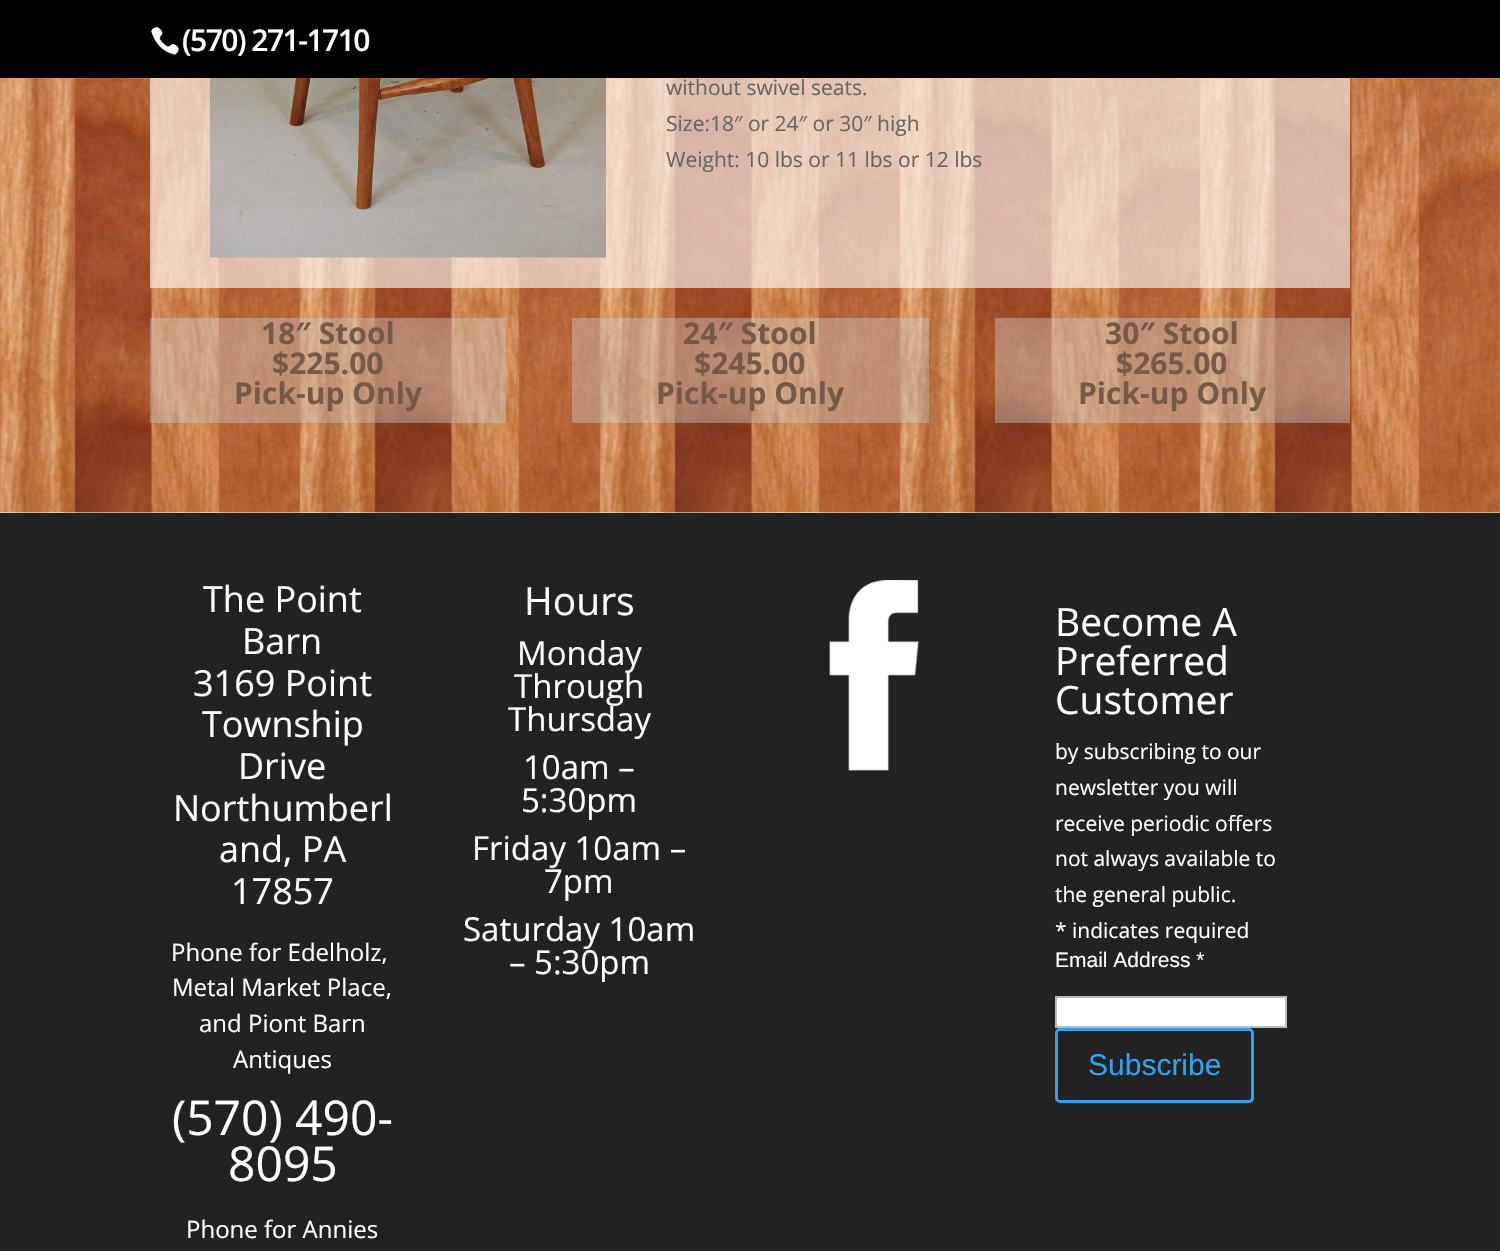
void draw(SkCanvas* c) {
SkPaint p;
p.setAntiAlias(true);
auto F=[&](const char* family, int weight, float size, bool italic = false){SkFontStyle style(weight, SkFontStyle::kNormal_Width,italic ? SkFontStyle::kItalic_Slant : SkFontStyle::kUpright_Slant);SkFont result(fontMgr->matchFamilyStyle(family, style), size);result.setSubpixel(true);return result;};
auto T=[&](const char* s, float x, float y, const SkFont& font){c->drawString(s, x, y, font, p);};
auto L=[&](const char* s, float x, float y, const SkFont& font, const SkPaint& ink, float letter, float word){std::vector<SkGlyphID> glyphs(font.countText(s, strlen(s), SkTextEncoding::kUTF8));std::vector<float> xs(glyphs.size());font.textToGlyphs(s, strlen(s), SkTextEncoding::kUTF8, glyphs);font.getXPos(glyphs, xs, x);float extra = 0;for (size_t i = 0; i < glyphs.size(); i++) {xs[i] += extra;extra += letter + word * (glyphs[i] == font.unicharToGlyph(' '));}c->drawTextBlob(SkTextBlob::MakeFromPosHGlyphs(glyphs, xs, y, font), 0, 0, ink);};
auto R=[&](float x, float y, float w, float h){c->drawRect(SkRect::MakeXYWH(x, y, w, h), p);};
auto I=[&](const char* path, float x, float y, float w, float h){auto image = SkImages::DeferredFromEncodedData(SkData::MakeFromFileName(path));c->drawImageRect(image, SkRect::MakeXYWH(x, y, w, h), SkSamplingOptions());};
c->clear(0xffffffff);
p.setColor(0xff000000);
R(0,0,1500,78);
I("1.png",151,27,28,28);
auto f1 = F("Open Sans",600,30);
p.setColor(0xffffffff);
L("(570) 271-1710",182,51,f1,p,-1.5,0);
I("2.png",0,78,1500,435);
p.setColor(0x99ffffff);
R(150,78,1200,210);
I("3.png",210,78,396,180);
auto f2 = F("Open Sans",400,21);
p.setColor(0xff666666);
T("without swivel seats.",666,95,f2);
T("Size:18″ or 24″ or 30″ high",666,131,f2);
T("Weight: 10 lbs or 11 lbs or 12 lbs",666,167,f2);
p.setColor(0x66cecece);
R(150,318,356,105);
auto f3 = F("Open Sans",700,30);
p.setColor(0xff765a49);
T("18″ Stool",261,344,f3);
T("$225.00",272,374,f3);
T("Pick-up Only",234,404,f3);
p.setColor(0x66cecece);
R(572,318,357,105);
p.setColor(0xff765a49);
T("24″ Stool",683,344,f3);
T("$245.00",694,374,f3);
T("Pick-up Only",656,404,f3);
p.setColor(0x66cecece);
R(995,318,355,105);
p.setColor(0xff765a49);
T("30″ Stool",1105,344,f3);
T("$265.00",1116,374,f3);
T("Pick-up Only",1078,404,f3);
p.setColor(0xff222222);
R(0,513,1500,738);
auto f4 = F("Open Sans",400,36);
p.setColor(0xffffffff);
T("The Point",203,612,f4);
T("Barn",242,654,f4);
T("3169 Point",193,696,f4);
T("Township",202,737,f4);
T("Drive",238,779,f4);
T("Northumberl",173,821,f4);
T("and, PA",219,862,f4);
T("17857",231,904,f4);
auto f5 = F("Open Sans",400,24);
T("Phone for Edelholz,",171,961,f5);
T("Metal Market Place,",172,996,f5);
T("and Piont Barn",199,1032,f5);
T("Antiques",233,1068,f5);
auto f6 = F("Open Sans",400,48);
T("(570) 490-",172,1135,f6);
T("8095",228,1181,f6);
T("Phone for Annies",186,1238,f5);
auto f7 = F("Open Sans",400,39);
T("Hours",524,615,f7);
auto f8 = F("Open Sans",400,33);
T("Monday",517,665,f8);
T("Through",514,698,f8);
T("Thursday",508,731,f8);
T("10am –",523,779,f8);
T("5:30pm",521,812,f8);
T("Friday 10am –",472,860,f8);
T("7pm",544,893,f8);
T("Saturday 10am",463,941,f8);
T("– 5:30pm",509,974,f8);
I("4.png",829,580,90,191);
T("Become A",1055,636,f7);
T("Preferred",1055,675,f7);
T("Customer",1055,714,f7);
T("by subscribing to our",1055,759,f2);
T("newsletter you will",1055,795,f2);
T("receive periodic offers",1055,831,f2);
T("not always available to",1055,866,f2);
T("the general public.",1055,902,f2);
T("* indicates required",1055,938,f2);
auto f9 = F("Liberation Sans",400,21);
T("Email Address *",1055,967,f9);
c->drawRect(SkRect::MakeXYWH(1056,997,230,30),p);
p.setStroke(true);
p.setStrokeWidth(2);
p.setColor(0xffbbbbbb);
c->drawRect(SkRect::MakeXYWH(1056,997,230,30),p);
p.setStrokeWidth(3);
p.setColor(0xff2ea3f2);
c->drawRoundRect(SkRect::MakeXYWH(1056.5,1029.5,196,72),3.5,3.5,p);
auto f10 = F("Liberation Sans",400,30);
p.setStroke(false);
T("Subscribe",1088,1075,f10);
}
